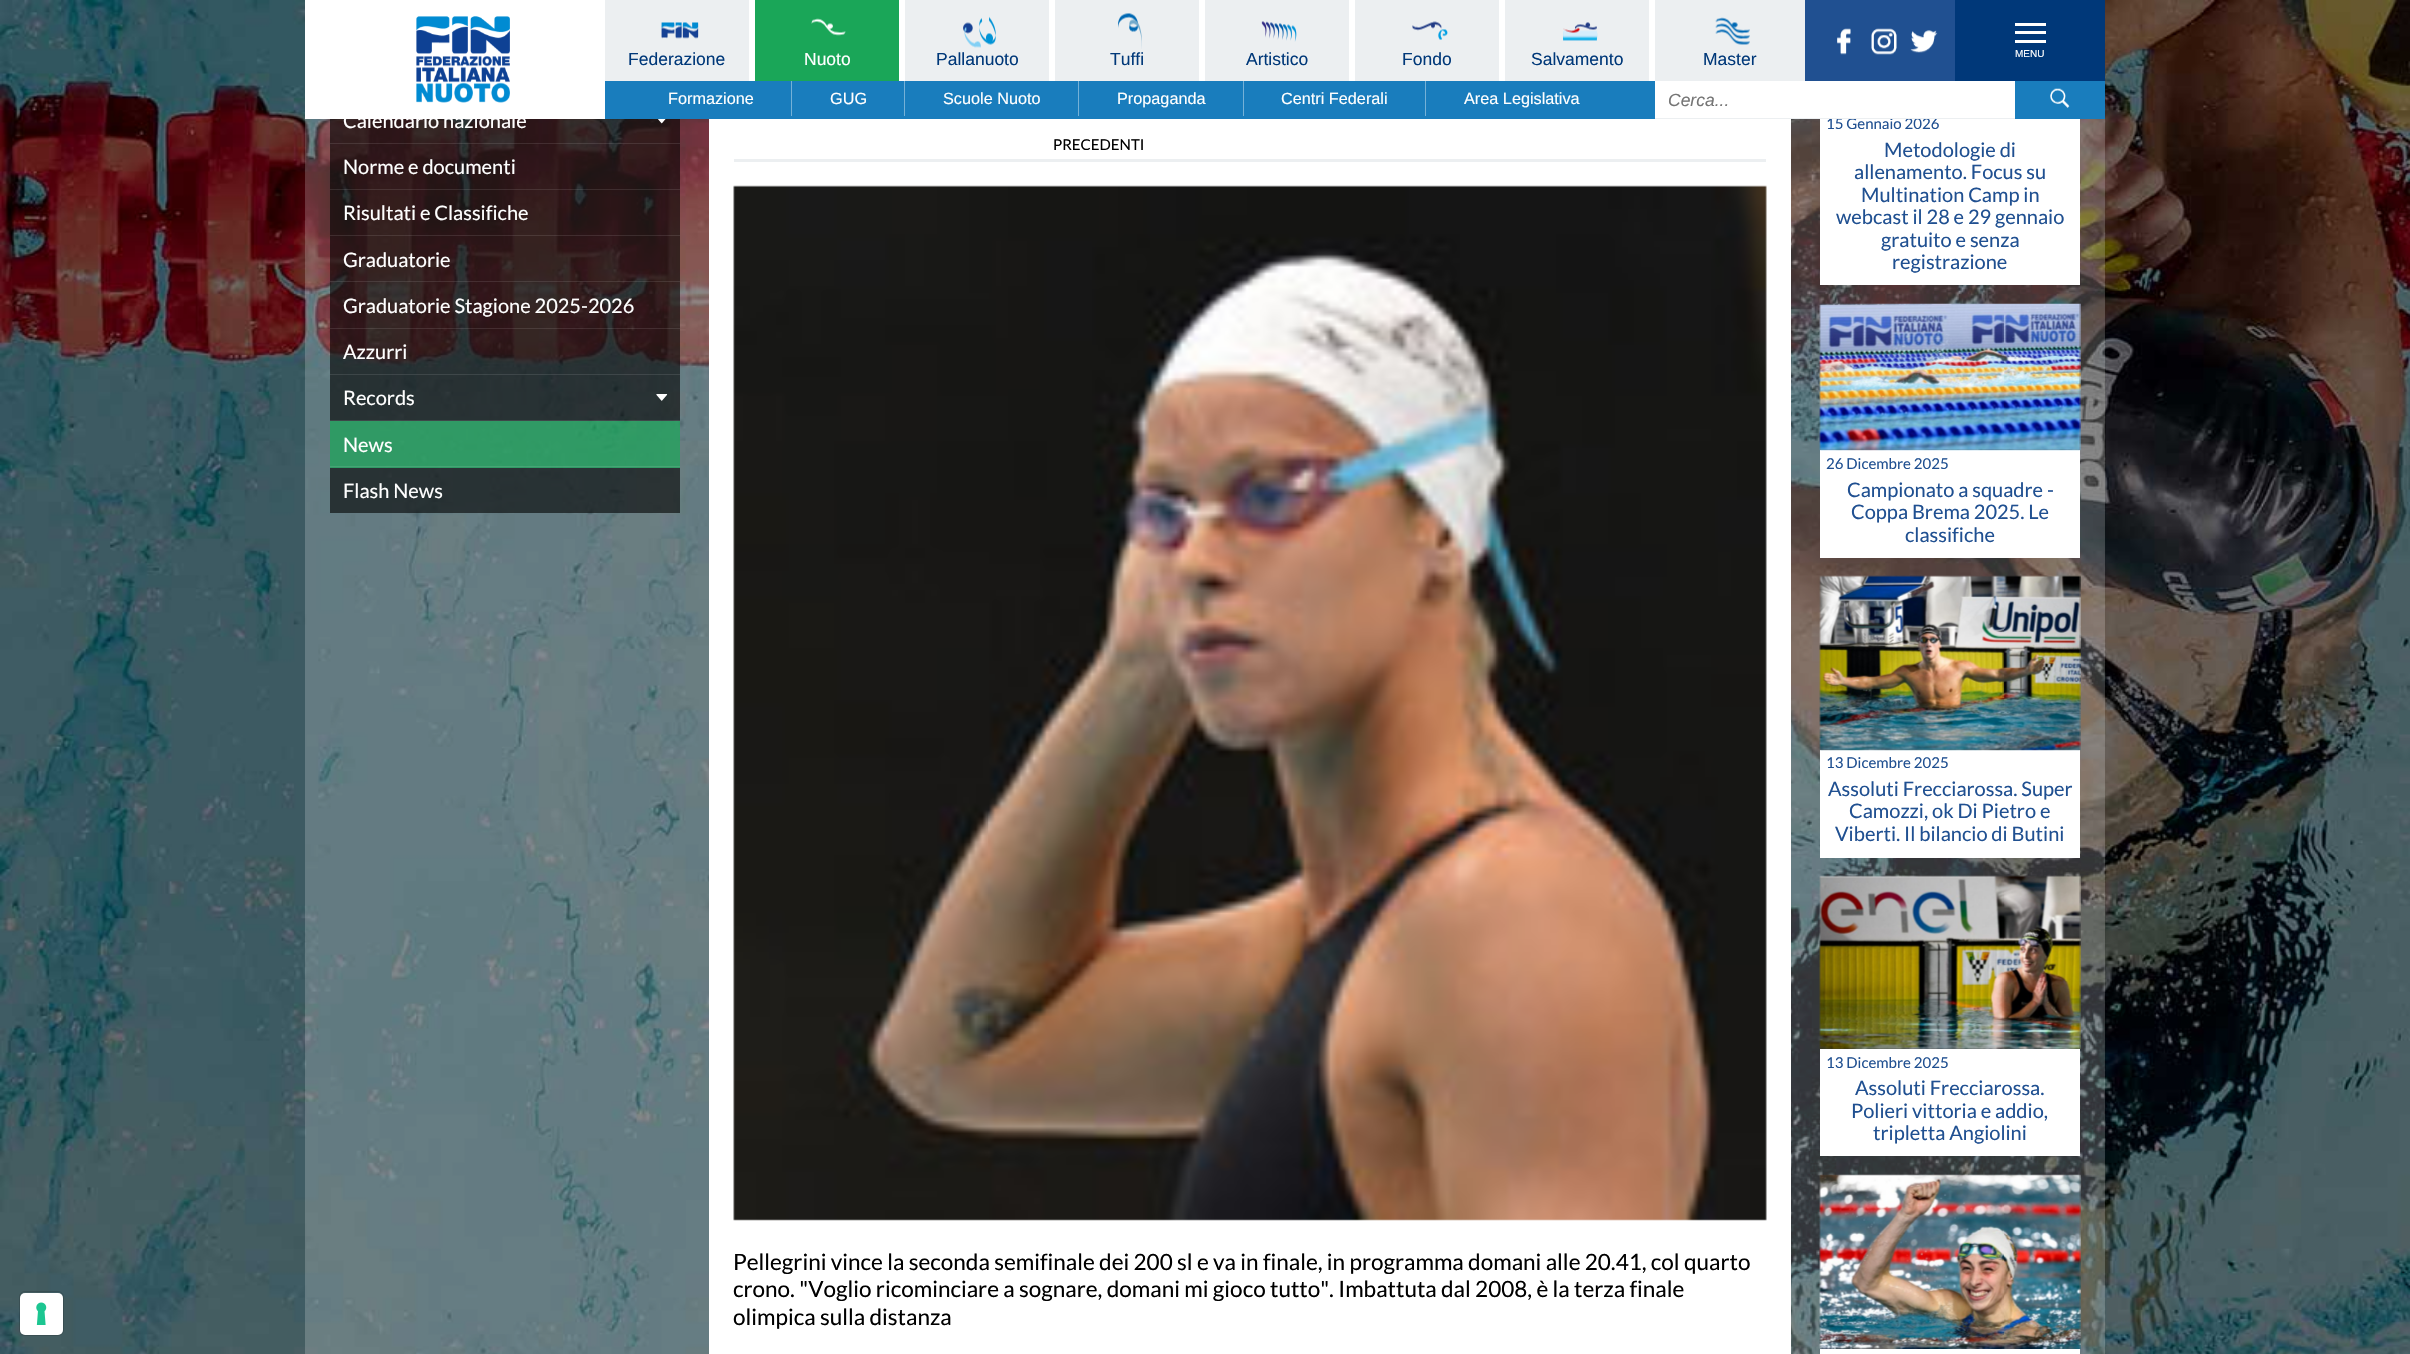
void draw(SkCanvas* c) {
SkPaint p;
p.setAntiAlias(true);
auto F=[&](const char* family, int weight, float size, bool italic = false){SkFontStyle style(weight, SkFontStyle::kNormal_Width,italic ? SkFontStyle::kItalic_Slant : SkFontStyle::kUpright_Slant);SkFont result(fontMgr->matchFamilyStyle(family, style), size);result.setSubpixel(true);return result;};
auto T=[&](const char* s, float x, float y, const SkFont& font){c->drawString(s, x, y, font, p);};
auto R=[&](float x, float y, float w, float h){c->drawRect(SkRect::MakeXYWH(x, y, w, h), p);};
auto Q=[&](float x, float y, float w, float h, float radius){c->drawRoundRect(SkRect::MakeXYWH(x, y, w, h), radius, radius, p);};
auto I=[&](const char* path, float x, float y, float w, float h){auto image = SkImages::DeferredFromEncodedData(SkData::MakeFromFileName(path));c->drawImageRect(image, SkRect::MakeXYWH(x, y, w, h), SkSamplingOptions());};
c->clear(0xffffffff);
I("14.png",0,0,2410,1354);
p.setColor(0xffffffff);
R(305,0,300,119);
I("1.png",416,16,94,87);
p.setColor(0xffeceff1);
R(605,0,144,81);
p.setColor(0xffffffff);
R(749,0,6,81);
I("2.png",661,22,38,17);
auto f1 = F("Liberation Sans",400,17.5);
p.setColor(0xff003879);
T("Federazione",628,65,f1);
p.setColor(0xff1aa658);
R(755,0,144,81);
p.setColor(0xffffffff);
R(899,0,6,81);
I("3.png",811,18,35,18);
T("Nuoto",804,65,f1);
p.setColor(0xffeceff1);
R(905,0,144,81);
p.setColor(0xffffffff);
R(1049,0,6,81);
I("4.png",963,16,33,32);
p.setColor(0xff003879);
T("Pallanuoto",936,65,f1);
p.setColor(0xffeceff1);
R(1055,0,144,81);
p.setColor(0xffffffff);
R(1199,0,6,81);
I("5.png",1118,13,24,36);
p.setColor(0xff003879);
T("Tuffi",1110,65,f1);
p.setColor(0xffeceff1);
R(1205,0,144,81);
p.setColor(0xffffffff);
R(1349,0,6,81);
I("6.png",1261,21,36,21);
p.setColor(0xff003879);
T("Artistico",1246,65,f1);
p.setColor(0xffeceff1);
R(1355,0,144,81);
p.setColor(0xffffffff);
R(1499,0,6,81);
I("7.png",1412,21,36,19);
p.setColor(0xff003879);
T("Fondo",1402,65,f1);
p.setColor(0xffeceff1);
R(1505,0,144,81);
p.setColor(0xffffffff);
R(1649,0,6,81);
I("8.png",1563,22,35,19);
p.setColor(0xff003879);
T("Salvamento",1531,65,f1);
p.setColor(0xffeceff1);
R(1655,0,150,81);
I("9.png",1715,17,35,28);
p.setColor(0xff003879);
T("Master",1703,65,f1);
p.setColor(0xff205091);
R(1805,0,150,81);
I("10.png",1837,28,14,27);
I("11.png",1871,28,26,27);
I("12.png",1910,30,28,23);
p.setColor(0xff003879);
R(1955,0,150,81);
p.setColor(0xffffffff);
R(2015,23,31,3);
R(2015,31,31,3);
R(2015,40,31,3);
auto f2 = F("Liberation Sans",400,10);
T("MENU",2015,57,f2);
R(1655,81,360,37);
p.setColor(0xff197dbd);
R(605,81,1050,38);
p.setColor(0xff75b1d7);
R(791,81,1,35);
auto f3 = F("Liberation Sans",400,16.25);
p.setColor(0xffffffff);
T("Formazione",668,104,f3);
p.setColor(0xff75b1d7);
R(904,81,1,35);
p.setColor(0xffffffff);
T("GUG",830,104,f3);
p.setColor(0xff75b1d7);
R(1078,81,1,35);
p.setColor(0xffffffff);
T("Scuole Nuoto",943,104,f3);
p.setColor(0xff75b1d7);
R(1243,81,1,35);
p.setColor(0xffffffff);
T("Propaganda",1117,104,f3);
p.setColor(0xff75b1d7);
R(1425,81,1,35);
p.setColor(0xffffffff);
T("Centri Federali",1281,104,f3);
T("Area Legislativa",1464,104,f3);
p.setColor(0x33ffffff);
R(305,119,1800,1235);
p.setColor(0xffffffff);
R(1820,119,260,166);
auto f4 = F("Lato",400,15);
p.setColor(0xff205091);
T("15 Gennaio 2026",1826,129,f4);
p.setColor(0xffeceff1);
R(1655,118,360,1);
auto f5 = F("Liberation Sans",400,17.5,true);
p.setColor(0xff757575);
T("Cerca...",1668,106,f5);
p.setColor(0xff197dbd);
R(2015,81,90,38);
I("13.png",2050,88,20,20);
p.setStroke(true);
p.setStrokeWidth(1);
p.setColor(0x26000000);
c->drawRoundRect(SkRect::MakeXYWH(19.5,1291.5,44,44),5.5,5.5,p);
p.setStroke(false);
p.setColor(0xffffffff);
Q(20,1293,43,42,5);
I("15.png",36,1302,11,23);
p.setColor(0x99000000);
R(330,119,350,25);
p.setColor(0x1affffff);
R(330,143,350,1);
auto f6 = F("Lato",400,20);
p.setColor(0xffffffff);
T("Calendario nazionale",343,128,f6);
I("16.png",658,119,8,5);
p.setColor(0x99000000);
R(330,144,350,46);
p.setColor(0x1affffff);
R(330,189,350,1);
p.setColor(0xffffffff);
T("Norme e documenti",343,174,f6);
p.setColor(0x99000000);
R(330,190,350,46);
p.setColor(0x1affffff);
R(330,235,350,1);
p.setColor(0xffffffff);
T("Risultati e Classifiche",343,220,f6);
p.setColor(0x99000000);
R(330,236,350,47);
p.setColor(0x1affffff);
R(330,281,350,1);
p.setColor(0xffffffff);
T("Graduatorie",343,267,f6);
p.setColor(0x99000000);
R(330,283,350,46);
p.setColor(0x1affffff);
R(330,328,350,1);
p.setColor(0xffffffff);
T("Graduatorie Stagione 2025-2026",343,313,f6);
p.setColor(0x99000000);
R(330,329,350,46);
p.setColor(0x1affffff);
R(330,374,350,1);
p.setColor(0xffffffff);
T("Azzurri",343,359,f6);
p.setColor(0x99000000);
R(330,375,350,46);
p.setColor(0x1affffff);
R(330,420,350,1);
p.setColor(0xffffffff);
T("Records",343,405,f6);
I("17.png",656,394,12,7);
p.setColor(0xb31aa658);
R(330,421,350,47);
p.setColor(0x1affffff);
R(330,466,350,1);
p.setColor(0xffffffff);
T("News",343,452,f6);
p.setColor(0x99000000);
R(330,468,350,45);
p.setColor(0xffffffff);
T("Flash News",343,498,f6);
R(709,119,1082,1235);
p.setColor(0xffeceff1);
R(734,159,1032,3);
p.setColor(0xff000000);
T("PRECEDENTI",1053,150,f4);
I("18.png",733,185,1034,1036);
auto f7 = F("Lato",400,22.5);
T("Pellegrini vince la seconda semifinale dei 200 sl e va in finale, in programma domani alle 20.41, col quarto",733,1270,f7);
T("crono. \"Voglio ricominciare a sognare, domani mi gioco tutto\". Imbattuta dal 2008, è la terza finale",733,1297,f7);
T("olimpica sulla distanza",733,1325,f7);
p.setColor(0xff205091);
T("Metodologie di",1884,157,f6);
T("allenamento. Focus su",1854,179,f6);
T("Multination Camp in",1861,202,f6);
T("webcast il 28 e 29 gennaio",1836,224,f6);
T("gratuito e senza",1881,247,f6);
T("registrazione",1892,269,f6);
p.setColor(0xffffffff);
R(1820,450,260,108);
I("19.png",1819,303,262,148);
p.setColor(0xff205091);
T("26 Dicembre 2025",1826,469,f4);
T("Campionato a squadre -",1847,497,f6);
T("Coppa Brema 2025. Le",1851,519,f6);
T("classifiche",1905,542,f6);
p.setColor(0xffffffff);
R(1820,750,260,108);
I("20.png",1819,575,262,176);
p.setColor(0xff205091);
T("13 Dicembre 2025",1826,768,f4);
T("Assoluti Frecciarossa. Super",1828,796,f6);
T("Camozzi, ok Di Pietro e",1849,818,f6);
T("Viberti. Il bilancio di Butini",1835,841,f6);
I("21.png",1819,875,262,174);
p.setColor(0xffffffff);
R(1820,1049,260,107);
p.setColor(0xff205091);
T("13 Dicembre 2025",1826,1068,f4);
T("Assoluti Frecciarossa.",1855,1095,f6);
T("Polieri vittoria e addio,",1851,1118,f6);
T("tripletta Angiolini",1873,1140,f6);
I("22.png",1819,1174,262,175);
p.setColor(0xffffffff);
R(1820,1349,260,5);
}
